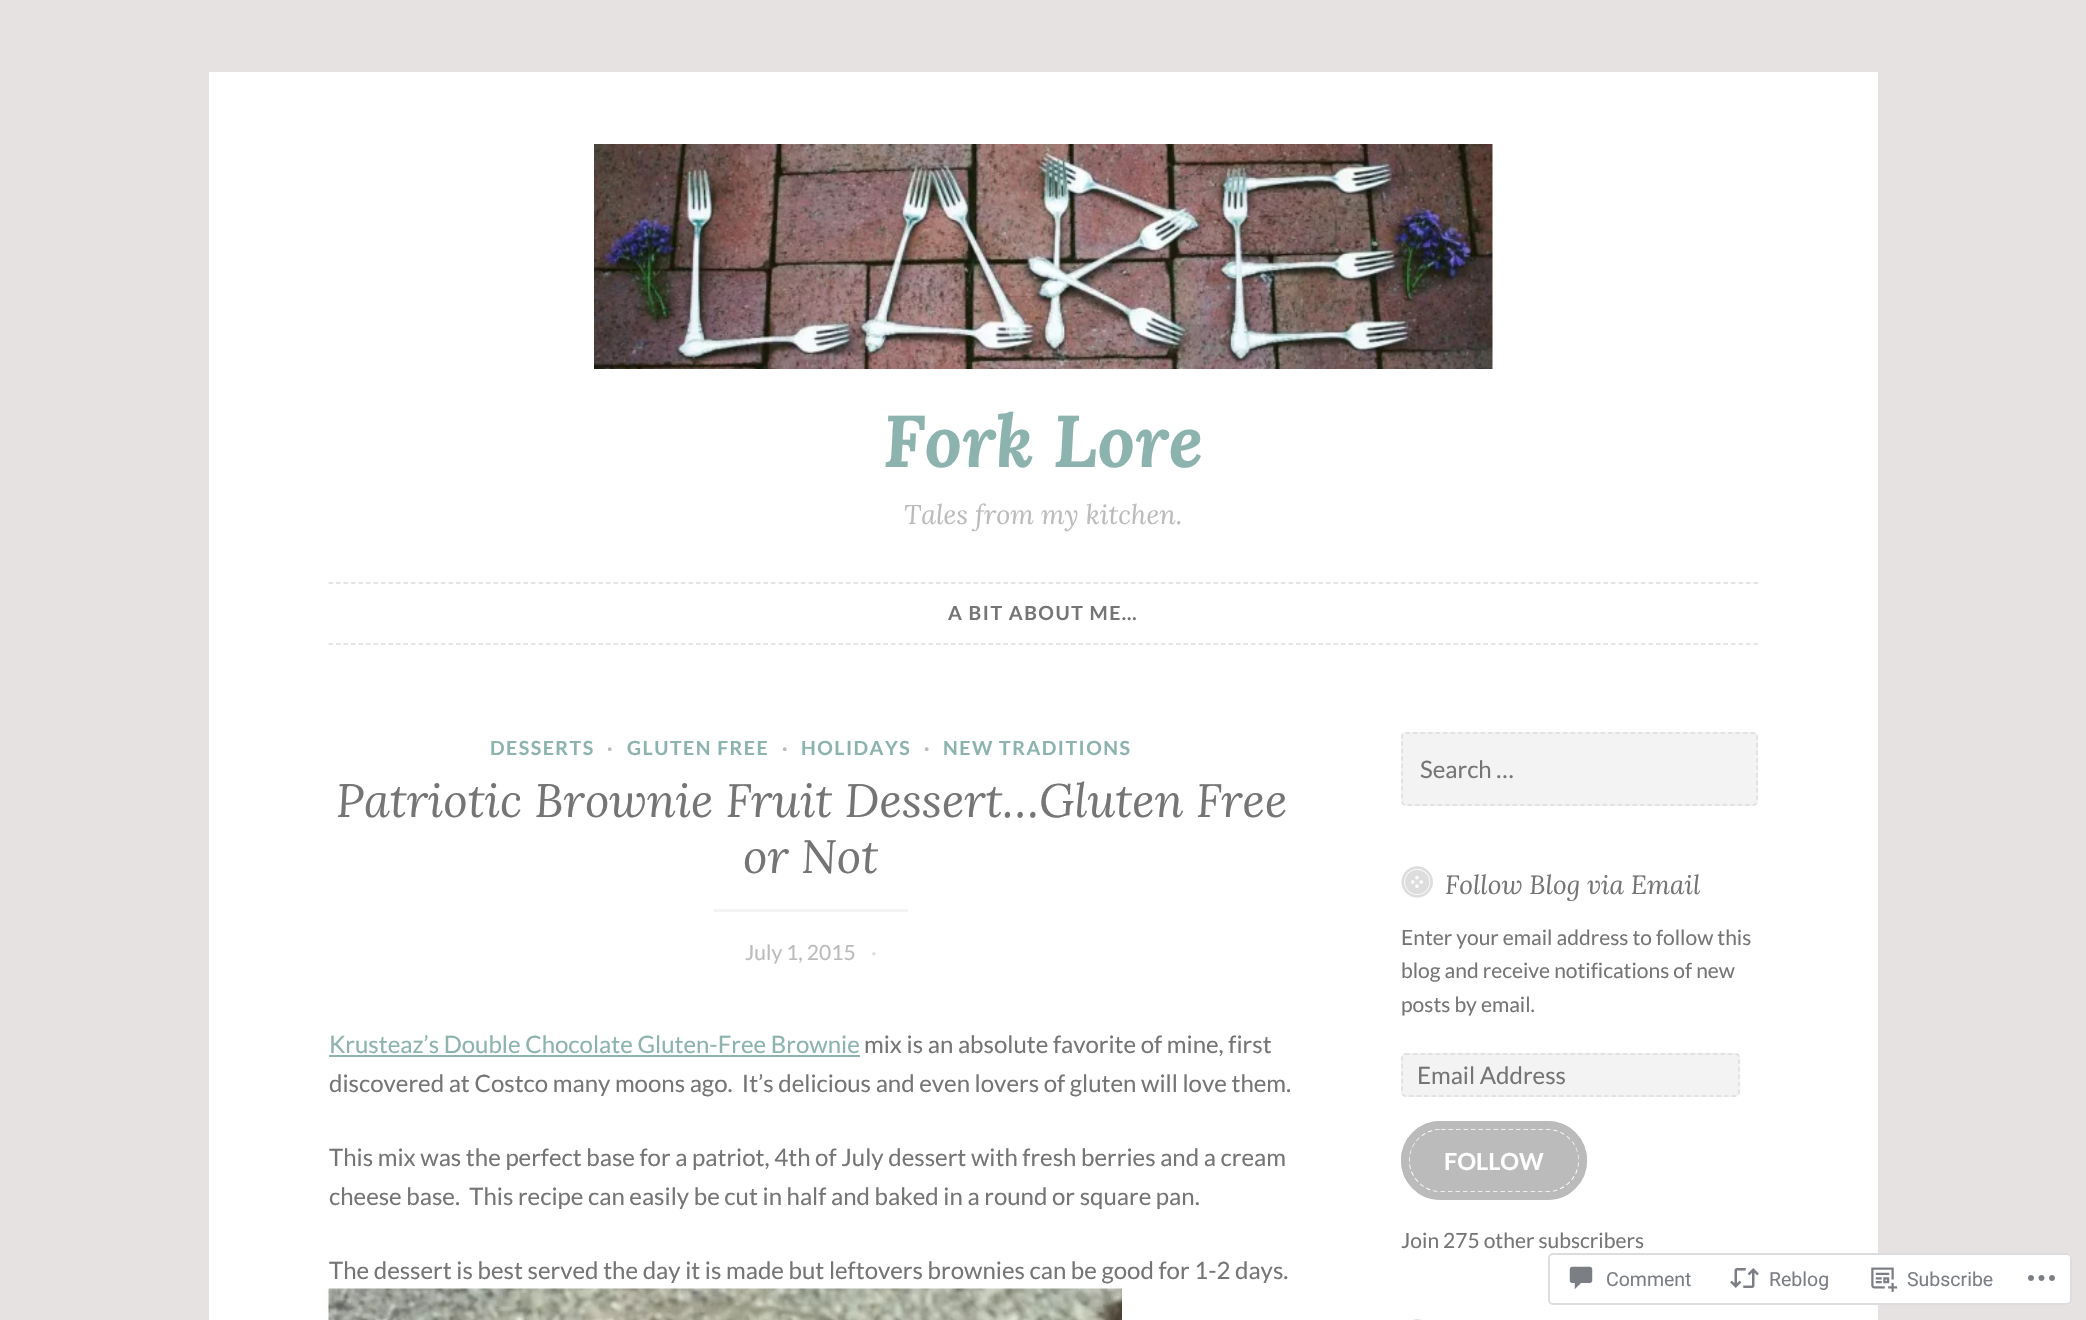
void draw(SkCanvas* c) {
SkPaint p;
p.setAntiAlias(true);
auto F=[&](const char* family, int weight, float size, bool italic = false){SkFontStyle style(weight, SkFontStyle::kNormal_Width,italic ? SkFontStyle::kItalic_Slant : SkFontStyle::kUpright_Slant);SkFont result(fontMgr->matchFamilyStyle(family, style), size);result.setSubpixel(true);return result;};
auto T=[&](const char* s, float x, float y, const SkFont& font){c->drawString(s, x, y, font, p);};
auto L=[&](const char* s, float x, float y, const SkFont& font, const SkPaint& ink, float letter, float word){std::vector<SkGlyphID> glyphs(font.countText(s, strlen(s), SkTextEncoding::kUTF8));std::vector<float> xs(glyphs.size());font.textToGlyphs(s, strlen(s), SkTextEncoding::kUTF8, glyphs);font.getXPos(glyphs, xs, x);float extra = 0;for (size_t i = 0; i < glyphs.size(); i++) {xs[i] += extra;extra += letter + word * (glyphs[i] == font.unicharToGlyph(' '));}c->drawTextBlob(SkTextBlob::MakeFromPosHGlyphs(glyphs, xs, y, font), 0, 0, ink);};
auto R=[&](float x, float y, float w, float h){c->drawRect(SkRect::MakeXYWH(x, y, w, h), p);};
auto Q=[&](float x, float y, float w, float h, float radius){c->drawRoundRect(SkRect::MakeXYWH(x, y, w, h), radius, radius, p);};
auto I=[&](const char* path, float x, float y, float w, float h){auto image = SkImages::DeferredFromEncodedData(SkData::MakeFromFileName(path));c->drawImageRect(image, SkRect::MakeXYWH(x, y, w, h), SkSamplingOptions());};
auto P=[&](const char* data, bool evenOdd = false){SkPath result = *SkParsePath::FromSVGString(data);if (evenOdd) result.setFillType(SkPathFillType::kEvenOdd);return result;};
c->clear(0xffe6e2e1);
p.setColor(0xffffffff);
R(209,72,1669,1248);
I("1.png",594,144,899,225);
auto f1 = F("Lora",700,73.25,true);
p.setColor(0xff8cb3ae);
T("Fork Lore",883,467,f1);
auto f2 = F("Lora",400,27,true);
p.setColor(0xffbbbbbb);
T("Tales from my kitchen.",904,524,f2);
p.setStroke(true);
p.setStrokeWidth(1.5);
p.setColor(0xffdddddd);
p.setPathEffect(SkDashPathEffect::Make({{4.5f,3}}, 0));
c->drawPath(P("M328.5 583h1429.5"),p);
p.setPathEffect(nullptr);
p.setPathEffect(SkDashPathEffect::Make({{4.5f,3}}, 0));
c->drawPath(P("M328.5 644h1429.5"),p);
p.setPathEffect(nullptr);
auto f3 = F("Lato",700,19.5);
p.setStroke(false);
p.setColor(0xff757575);
L("A BIT ABOUT ME…",948,620,f3,p,1.5,0);
p.setColor(0xff8cb3ae);
L("DESSERTS",490,755,f3,p,1.5,0);
p.setColor(0xffbbbbbb);
L("·",607,755,f3,p,1.5,0);
p.setColor(0xff8cb3ae);
L("GLUTEN FREE",627,755,f3,p,1.5,0);
p.setColor(0xffbbbbbb);
L("·",782,755,f3,p,1.5,0);
p.setColor(0xff8cb3ae);
L("HOLIDAYS",801,755,f3,p,1.5,0);
p.setColor(0xffbbbbbb);
L("·",924,755,f3,p,1.5,0);
p.setColor(0xff8cb3ae);
L("NEW TRADITIONS",943,755,f3,p,1.5,0);
auto f4 = F("Lora",400,46.9,true);
p.setColor(0xff757575);
T("Patriotic Brownie Fruit Dessert…Gluten Free",336,817,f4);
T("or Not",743,873,f4);
p.setColor(0xfff3f3f3);
R(714,909,194,3);
auto f5 = F("Lato",400,21);
p.setColor(0xffbbbbbb);
T("July 1, 2015",745,960,f5);
p.setColor(0xffdddddd);
T("·",871,960,f5);
auto f6 = F("Lato",400,24);
p.setColor(0xff8cb3ae);
T("Krusteaz’s Double Chocolate Gluten-Free Brownie",329,1053,f6);
R(329,1055,531,2);
p.setColor(0xff757575);
T("mix is an absolute favorite of mine, first",864,1053,f6);
T("discovered at Costco many moons ago.  It’s delicious and even lovers of gluten will love them.",329,1092,f6);
T("This mix was the perfect base for a patriot, 4th of July dessert with fresh berries and a cream",329,1166,f6);
T("cheese base.  This recipe can easily be cut in half and baked in a round or square pan.",329,1205,f6);
T("The dessert is best served the day it is made but leftovers brownies can be good for 1-2 days.",329,1279,f6);
I("2.png",328,1288,794,32);
p.setColor(0xfff3f3f3);
Q(1401,732,357,74,5);
p.setStroke(true);
p.setColor(0xffdddddd);
p.setPathEffect(SkDashPathEffect::Make({{4.5f,3}}, 0));
c->drawPath(P("M1405.5 733h348c2 0 3.5 1.5 3.5 3.5v64.5c0 2-1.5 4-3.5 4h-348c-2 0-3.5-2-3.5-4v-64.5c0-2 1.5-3.5 3.5-3.5z"),p);
p.setPathEffect(nullptr);
p.setStroke(false);
p.setColor(0xff757575);
T("Search …",1420,778,f6);
I("3.png",1401,866,32,32);
auto f7 = F("Lora",400,26.25,true);
T("Follow Blog via Email",1445,894,f7);
T("Enter your email address to follow this",1401,945,f5);
T("blog and receive notifications of new",1401,978,f5);
T("posts by email.",1401,1012,f5);
p.setColor(0xfff3f3f3);
Q(1401,1053,339,44,5);
p.setStroke(true);
p.setColor(0xffdddddd);
p.setPathEffect(SkDashPathEffect::Make({{4.5f,3}}, 0));
c->drawPath(P("M1405.5 1054h330c2 0 3.5 1.5 3.5 3.5v34.5c0 2-1.5 4-3.5 4h-330c-2 0-3.5-2-3.5-4v-34.5c0-2 1.5-3.5 3.5-3.5z"),p);
p.setPathEffect(nullptr);
p.setStroke(false);
p.setColor(0xff757575);
T("Email Address",1417,1084,f6);
p.setStroke(true);
p.setStrokeWidth(8);
p.setColor(0xffbbbbbb);
c->drawRoundRect(SkRect::MakeXYWH(1405,1125,178,71),35.5,35.5,p);
p.setStroke(false);
Q(1409,1128,171,65,32.5);
p.setStroke(true);
p.setStrokeWidth(1.5);
p.setColor(0xffffffff);
p.setPathEffect(SkDashPathEffect::Make({{4.5f,3}}, 0));
c->drawPath(P("M1441 1129h106c17.5 0 32 14 32 31c0 17.5-14.5 32-32 32h-106c-17.5 0-32-14.5-32-32c0-17 14.5-31 32-31z"),p);
p.setPathEffect(nullptr);
p.setStrokeWidth(8);
p.setColor(0xffbbbbbb);
c->drawRoundRect(SkRect::MakeXYWH(1405,1125,178,71),35.5,35.5,p);
auto f8 = F("Lato",700,23.5);
p.setStroke(false);
p.setColor(0xffffffff);
T("FOLLOW",1444,1170,f8);
p.setColor(0xff757575);
T("Join 275 other subscribers",1401,1248,f5);
I("4.png",1413,1319,9,1);
p.setColor(0xfaffffff);
Q(1548,1253,524,52,5);
p.setStroke(true);
p.setStrokeWidth(2);
p.setColor(0xfadcdcde);
c->drawRoundRect(SkRect::MakeXYWH(1549,1254,522,50),4,4,p);
I("5.png",1569,1266,24,24);
auto f9 = F("Roboto",400,19.5);
p.setStroke(false);
p.setColor(0xff7b7f85);
T("Comment",1606,1286,f9);
I("6.png",1730,1268,29,20);
T("Reblog",1769,1286,f9);
I("7.png",1871,1267,27,25);
T("Subscribe",1907,1286,f9);
I("8.png",2028,1275,27,6);
}
